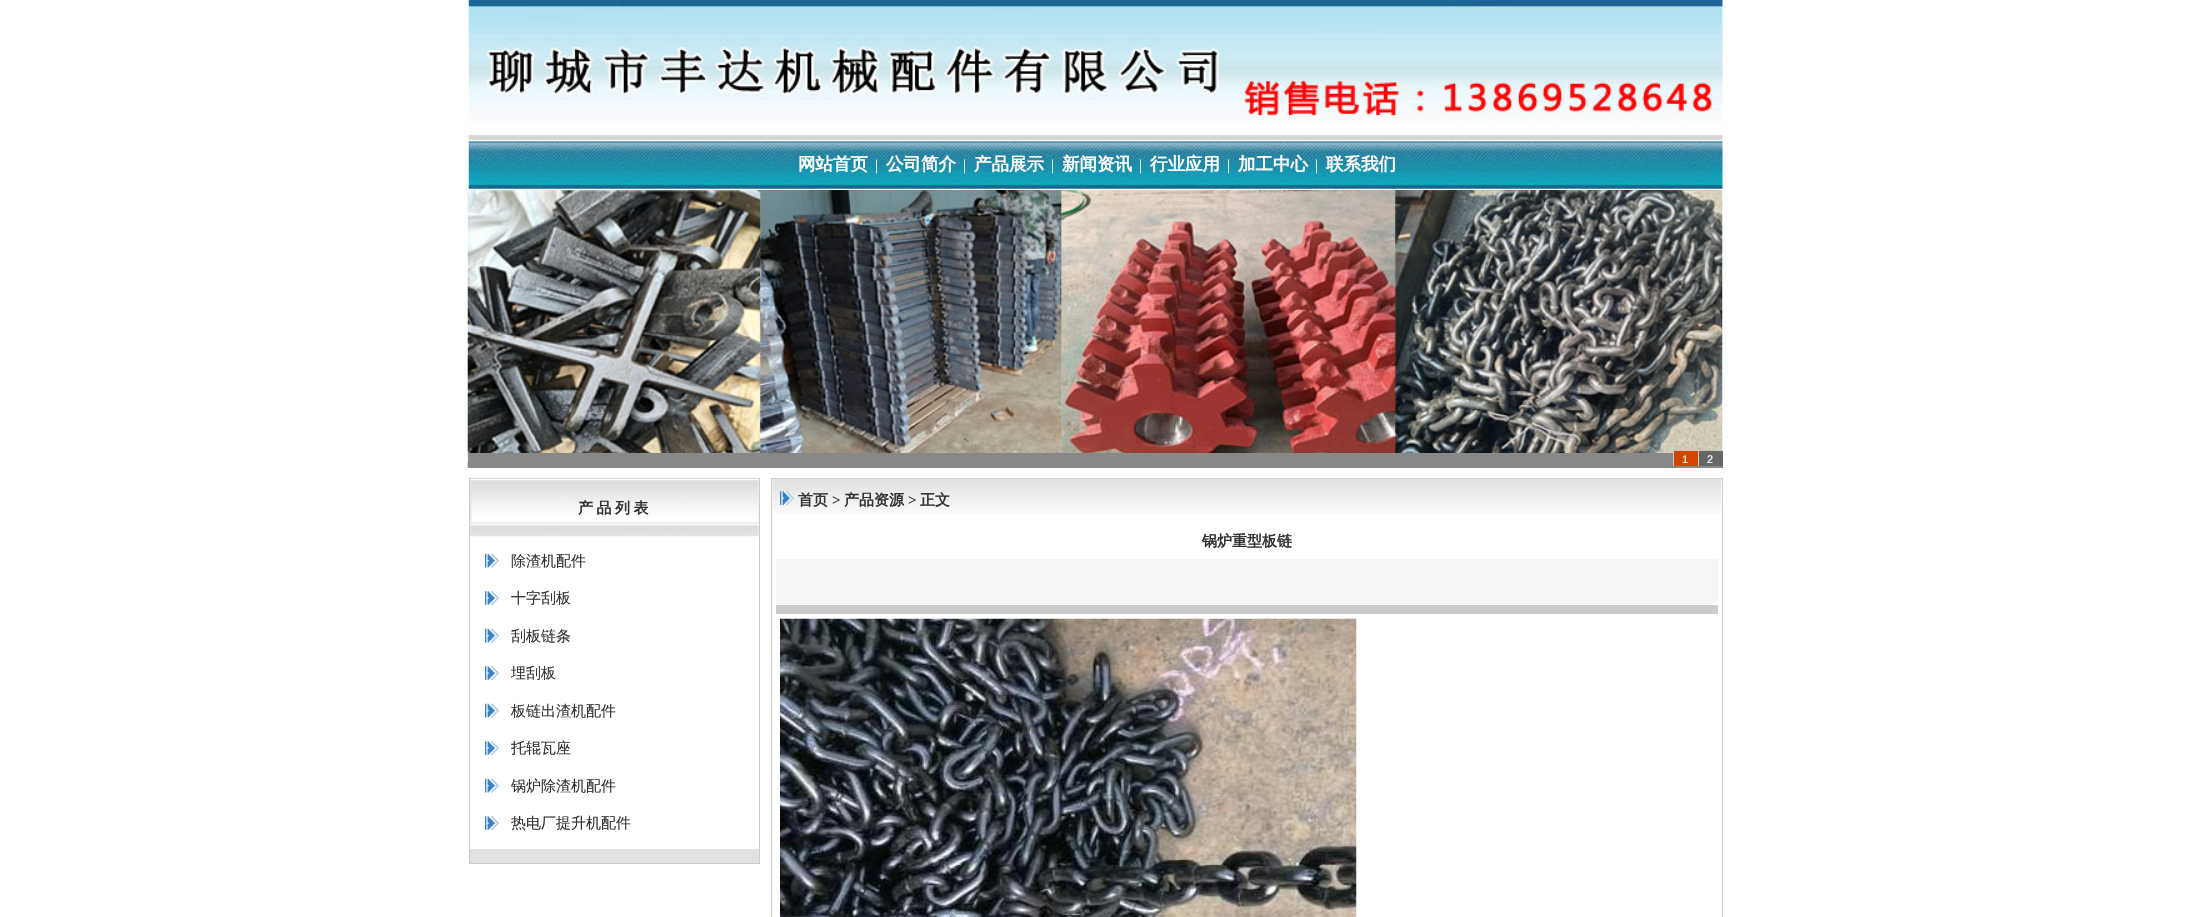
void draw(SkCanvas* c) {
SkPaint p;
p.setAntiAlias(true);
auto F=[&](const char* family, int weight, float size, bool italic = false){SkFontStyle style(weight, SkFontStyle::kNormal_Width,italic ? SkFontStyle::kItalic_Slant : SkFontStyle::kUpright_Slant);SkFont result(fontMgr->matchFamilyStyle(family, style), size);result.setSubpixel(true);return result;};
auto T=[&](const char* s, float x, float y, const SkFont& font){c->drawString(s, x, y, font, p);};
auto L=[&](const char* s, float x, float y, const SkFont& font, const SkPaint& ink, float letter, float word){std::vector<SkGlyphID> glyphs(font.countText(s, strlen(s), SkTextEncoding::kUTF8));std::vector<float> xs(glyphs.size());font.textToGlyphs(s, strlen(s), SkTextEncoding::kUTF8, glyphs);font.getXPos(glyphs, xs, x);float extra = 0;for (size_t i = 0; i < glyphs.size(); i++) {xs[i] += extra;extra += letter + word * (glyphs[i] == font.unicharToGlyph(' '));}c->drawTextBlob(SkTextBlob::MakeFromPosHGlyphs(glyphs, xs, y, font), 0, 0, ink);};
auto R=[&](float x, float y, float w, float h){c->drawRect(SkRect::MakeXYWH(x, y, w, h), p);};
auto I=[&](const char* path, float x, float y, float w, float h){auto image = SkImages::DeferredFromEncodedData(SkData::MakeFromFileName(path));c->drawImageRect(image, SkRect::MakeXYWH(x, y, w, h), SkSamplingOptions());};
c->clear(0xffffffff);
I("2.png",468,141,1255,48);
I("1.png",468,0,1255,142);
auto f1 = F("WenQuanYi Zen Hei",700,17.5);
p.setColor(0xffffffff);
T("网站首页",798,170,f1);
auto f2 = F("Liberation Serif",400,15);
T("|",875,170,f2);
T("公司简介",886,170,f1);
T("|",963,170,f2);
T("产品展示",974,170,f1);
T("|",1051,170,f2);
T("新闻资讯",1062,170,f1);
T("|",1139,170,f2);
T("行业应用",1150,170,f1);
T("|",1227,170,f2);
T("加工中心",1238,170,f1);
T("|",1315,170,f2);
T("联系我们",1326,170,f1);
I("3.png",467,190,1256,278);
p.setColor(0xff888888);
R(468,453,1255,15);
p.setColor(0xffd34600);
R(1674,451,24,15);
auto f3 = F("Liberation Sans",400,11);
p.setColor(0xffffffff);
T("1",1682,463,f3);
p.setColor(0xffcccccc);
R(1673,451,1,15);
p.setColor(0xff666666);
R(1699,451,24,15);
p.setColor(0xffffffff);
T("2",1707,463,f3);
p.setColor(0xffcccccc);
R(1698,451,1,15);
p.setStroke(true);
p.setStrokeWidth(1);
c->drawRect(SkRect::MakeXYWH(469.5,478.5,290,385),p);
I("4.png",470,478,289,59);
auto f4 = F("WenQuanYi Zen Hei",700,15);
p.setStroke(false);
p.setColor(0xff333333);
L("产 品 列 表",578,513,f4,p,0,-1);
I("5.png",485,553,14,15);
auto f5 = F("WenQuanYi Zen Hei",500,15);
T("除渣机配件",511,566,f5);
I("6.png",485,591,14,14);
T("十字刮板",511,603,f5);
I("5.png",485,628,14,15);
T("刮板链条",511,641,f5);
I("6.png",485,666,14,14);
T("埋刮板",511,678,f5);
I("5.png",485,703,14,15);
T("板链出渣机配件",511,716,f5);
I("6.png",485,741,14,14);
T("托辊瓦座",511,753,f5);
I("7.png",485,778,14,15);
T("锅炉除渣机配件",511,791,f5);
I("6.png",485,816,14,14);
T("热电厂提升机配件",511,828,f5);
p.setColor(0xffe2e2e2);
R(470,849,289,14);
p.setStroke(true);
p.setColor(0xffcccccc);
c->drawRect(SkRect::MakeXYWH(771.5,478.5,951,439),p);
I("8.png",772,478,950,36);
I("9.png",780,491,14,14);
p.setStroke(false);
p.setColor(0xff333333);
T("首页",798,505,f4);
auto f6 = F("Liberation Serif",700,15);
T(">",832,505,f6);
T("产品资源",844,505,f4);
T(">",908,505,f6);
T("正文",920,505,f4);
T("锅炉重型板链",1202,546,f4);
p.setColor(0xfff6f6f6);
R(776,559,942,45);
p.setColor(0xffcccccc);
R(776,605,942,9);
I("10.png",780,618,577,299);
}
